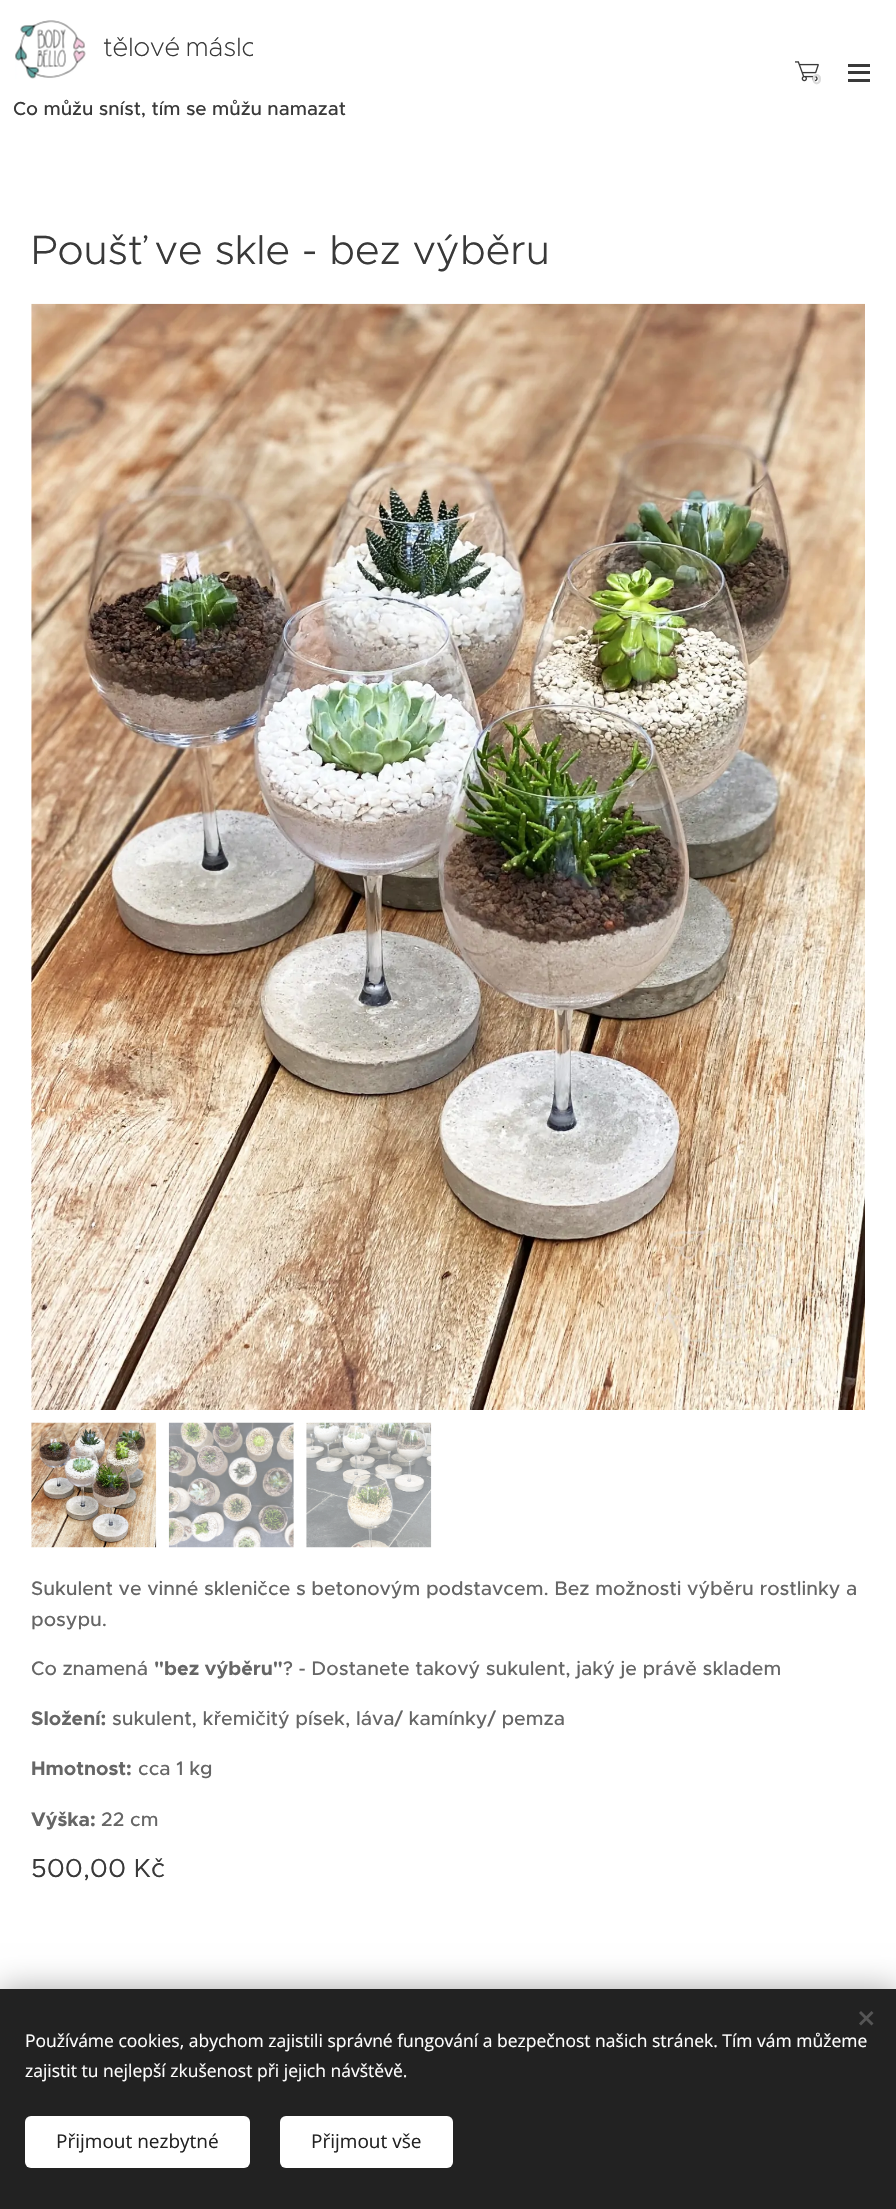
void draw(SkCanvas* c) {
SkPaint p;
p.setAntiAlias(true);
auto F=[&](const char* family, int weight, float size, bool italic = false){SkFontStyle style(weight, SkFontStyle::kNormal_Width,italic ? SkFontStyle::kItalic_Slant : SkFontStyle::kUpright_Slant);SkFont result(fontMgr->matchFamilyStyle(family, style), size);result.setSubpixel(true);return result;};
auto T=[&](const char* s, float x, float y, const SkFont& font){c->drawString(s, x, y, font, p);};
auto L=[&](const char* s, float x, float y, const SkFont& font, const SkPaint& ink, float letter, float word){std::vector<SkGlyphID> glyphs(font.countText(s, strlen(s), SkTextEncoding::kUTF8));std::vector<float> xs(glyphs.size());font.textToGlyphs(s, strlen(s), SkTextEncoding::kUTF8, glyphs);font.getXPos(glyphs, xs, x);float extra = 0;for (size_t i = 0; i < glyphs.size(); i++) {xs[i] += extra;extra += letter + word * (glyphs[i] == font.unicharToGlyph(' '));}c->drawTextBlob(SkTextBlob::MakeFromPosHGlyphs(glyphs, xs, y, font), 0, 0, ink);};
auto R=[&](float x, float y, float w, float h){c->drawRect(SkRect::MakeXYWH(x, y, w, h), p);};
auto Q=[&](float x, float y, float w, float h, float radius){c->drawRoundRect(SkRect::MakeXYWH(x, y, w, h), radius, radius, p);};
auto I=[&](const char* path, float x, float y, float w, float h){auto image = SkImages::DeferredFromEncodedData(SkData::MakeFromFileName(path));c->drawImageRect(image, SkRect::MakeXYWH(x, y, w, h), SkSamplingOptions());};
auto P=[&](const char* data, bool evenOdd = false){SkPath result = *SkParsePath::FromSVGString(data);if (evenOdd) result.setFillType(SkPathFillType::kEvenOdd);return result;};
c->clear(0xffffffff);
I("1.png",15,20,71,59);
c->save();
c->clipRect(SkRect::MakeXYWH(98,30,155,40));
auto f1 = F("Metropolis",200,26.25);
p.setColor(0xff393939);
L("tělové máslo",103,56,f1,p,0,-2);
c->restore();
auto f2 = F("Metropolis",500,19);
T("Co můžu sníst, tím se můžu namazat",13,115,f2);
I("2.png",795,61,24,21);
auto f3 = F("Montserrat",700,14);
p.setColor(0xffdcdcdc);
T("0",812,84,f3);
p.setColor(0xff393939);
R(848,71,22,3);
R(848,64,22,3);
R(848,79,22,3);
auto f4 = F("Metropolis",300,41.25);
T("Poušť ve skle - bez výběru",31,264,f4);
I("3.png",31,303,834,1107);
I("4.png",31,1422,126,126);
I("5.png",168,1422,126,126);
I("6.png",306,1422,126,126);
auto f5 = F("Metropolis",500,19.6);
p.setColor(0xff666666);
T("Sukulent ve vinné skleničce s betonovým podstavcem. Bez možnosti výběru rostlinky a",31,1595,f5);
T("posypu.",31,1626,f5);
T("Co znamená",31,1675,f5);
auto f6 = F("Metropolis",700,19.6);
T("\"bez výběru\"",154,1675,f6);
T("? - Dostanete takový sukulent, jaký je právě skladem",283,1675,f5);
T("Složení:",31,1725,f6);
T("sukulent, křemičitý písek, láva/ kamínky/ pemza",112,1725,f5);
T("Hmotnost:",31,1775,f6);
T("cca 1 kg",138,1775,f5);
T("Výška:",31,1826,f6);
T("22 cm",101,1826,f5);
auto f7 = F("Metropolis",400,26.25);
p.setColor(0xff393939);
T("500,00 Kč",31,1877,f7);
p.setColor(0x54000000);
p.setMaskFilter(SkMaskFilter::MakeBlur(kNormal_SkBlurStyle, 15.5));
c->drawRect(SkRect::MakeXYWH(0,1989,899,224),p);
p.setMaskFilter(nullptr);
p.setColor(0xff222222);
R(0,1989,896,220);
p.setColor(0xff555555);
c->drawPath(P("M859 2023.5l12.5-12.5l2 2l-12.5 12.5z"),p);
c->drawPath(P("M861 2011l12.5 12.5l-2 2l-12.5-12.5z"),p);
auto f8 = F("Open Sans",400,17.5);
p.setColor(0xffffffff);
T("Používáme cookies, abychom zajistili správné fungování a bezpečnost našich stránek. Tím vám můžeme",25,2047,f8);
T("zajistit tu nejlepší zkušenost při jejich návštěvě.",25,2077,f8);
Q(25,2116,225,52,6);
auto f9 = F("Open Sans",400,19);
p.setColor(0xff222222);
T("Přijmout nezbytné",56,2148,f9);
p.setColor(0xffffffff);
Q(280,2116,173,52,6);
p.setColor(0xff222222);
T("Přijmout vše",311,2148,f9);
}
